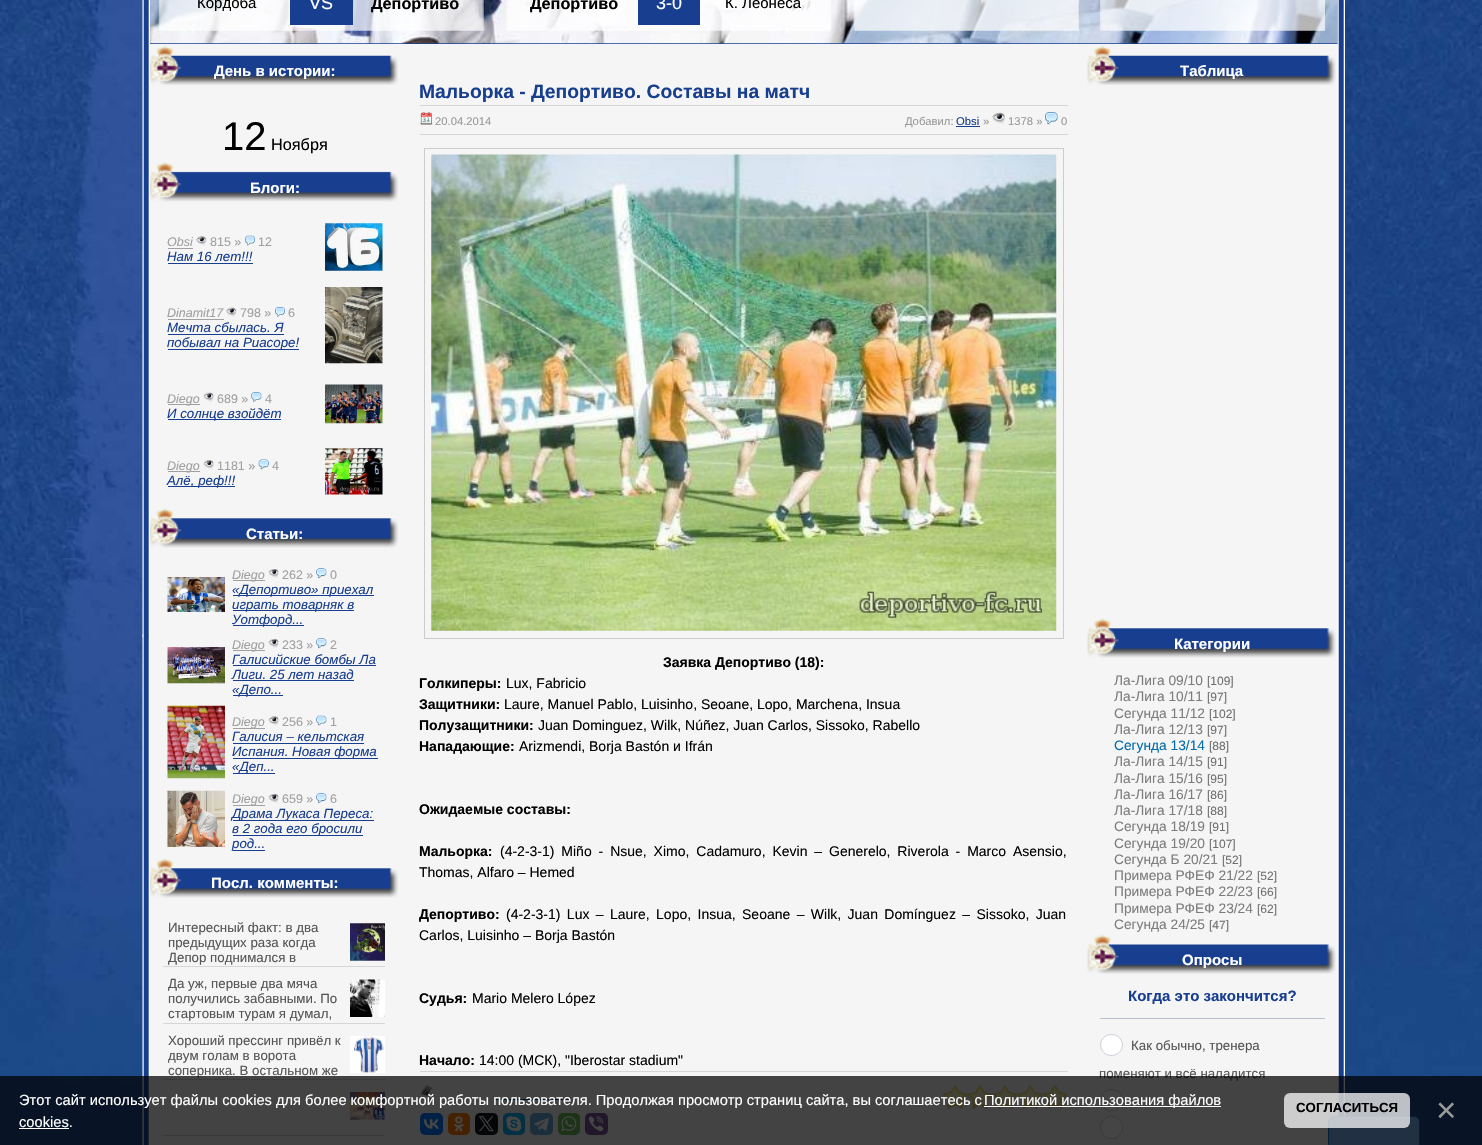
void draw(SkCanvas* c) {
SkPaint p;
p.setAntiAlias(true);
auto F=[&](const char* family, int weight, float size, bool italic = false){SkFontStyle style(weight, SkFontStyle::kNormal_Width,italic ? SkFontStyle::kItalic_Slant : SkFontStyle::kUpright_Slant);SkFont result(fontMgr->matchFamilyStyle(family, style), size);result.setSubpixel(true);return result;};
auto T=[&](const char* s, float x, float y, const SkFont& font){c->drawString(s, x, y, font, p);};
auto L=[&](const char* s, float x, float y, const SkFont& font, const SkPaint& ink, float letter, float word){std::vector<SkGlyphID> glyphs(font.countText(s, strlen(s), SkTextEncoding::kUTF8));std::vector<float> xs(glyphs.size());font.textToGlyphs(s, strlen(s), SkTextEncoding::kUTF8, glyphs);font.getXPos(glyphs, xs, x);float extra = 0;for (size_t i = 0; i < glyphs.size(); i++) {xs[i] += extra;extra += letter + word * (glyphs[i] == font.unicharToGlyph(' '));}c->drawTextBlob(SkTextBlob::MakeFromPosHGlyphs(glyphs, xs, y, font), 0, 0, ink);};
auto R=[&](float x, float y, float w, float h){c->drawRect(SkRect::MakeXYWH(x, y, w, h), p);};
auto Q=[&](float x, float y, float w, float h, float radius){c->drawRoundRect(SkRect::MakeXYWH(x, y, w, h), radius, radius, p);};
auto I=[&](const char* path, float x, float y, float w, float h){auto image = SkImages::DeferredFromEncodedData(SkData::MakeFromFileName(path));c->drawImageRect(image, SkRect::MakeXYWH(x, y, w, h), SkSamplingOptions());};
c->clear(0xffffffff);
I("1.png",0,0,1482,1145);
I("2.png",142,0,8,1145);
I("3.png",142,634,7,3);
p.setColor(0xff183e8f);
R(150,0,1188,44);
I("4.png",150,0,1188,44);
I("5.png",158,0,326,31);
auto f1 = F("Liberation Sans",400,15);
p.setColor(0xff000000);
T("Кордоба",197,8,f1);
p.setColor(0xff183e8f);
R(290,0,63,25);
auto f2 = F("Liberation Sans",400,18);
p.setColor(0xffffffff);
T("VS",309,9,f2);
auto f3 = F("Liberation Sans",700,16.25);
p.setColor(0xff000000);
T("Депортиво",371,9,f3);
I("6.png",506,0,325,31);
T("Депортиво",530,9,f3);
p.setColor(0xff183e8f);
R(638,0,62,25);
p.setColor(0xffffffff);
T("3-0",656,9,f2);
p.setColor(0xff000000);
T("К. Леонеса",725,8,f1);
I("7.png",853,0,226,31);
I("8.png",1100,0,225,31);
p.setColor(0xfff5f5f5);
R(150,44,1188,1101);
I("9.png",150,45,248,40);
auto f4 = F("Liberation Sans",700,15);
p.setColor(0xffffffff);
T("День в истории:",214,76,f4);
auto f5 = F("Liberation Sans",400,40);
p.setColor(0xff000000);
T("12",222,150,f5);
auto f6 = F("Liberation Sans",400,16.25);
T("Ноября",271,150,f6);
I("10.png",150,162,248,40);
p.setColor(0xffffffff);
T("Блоги:",250,193,f4);
auto f7 = F("Liberation Sans",400,12.5,true);
p.setColor(0xffa0a0a0);
T("Obsi",167,246,f7);
R(168,248,25,1);
I("11.png",196,236,11,10);
auto f8 = F("Liberation Sans",400,12.5);
T("815 »",210,246,f8);
I("12.png",245,235,10,11);
T("12",258,246,f8);
auto f9 = F("Liberation Sans",400,13.3,true);
p.setColor(0xff183e8f);
T("Нам 16 лет!!!",167,261,f9);
R(168,263,85,1);
I("13.png",325,223,58,48);
p.setColor(0xffa0a0a0);
T("Dinamit17",167,317,f7);
R(168,319,56,1);
I("14.png",226,307,11,10);
T("798 »",240,317,f8);
I("15.png",275,307,10,10);
T("6",288,317,f8);
p.setColor(0xff183e8f);
T("Мечта сбылась. Я",167,332,f9);
R(168,334,116,1);
R(168,349,131,1);
T("побывал на Риасоре!",167,347,f9);
I("16.png",325,287,58,77);
p.setColor(0xffa0a0a0);
R(168,404,32,1);
T("Diego",167,403,f7);
I("17.png",203,392,11,10);
T("689 »",217,403,f8);
I("18.png",251,392,11,10);
T("4",265,403,f8);
p.setColor(0xff183e8f);
R(168,419,113,1);
T("И солнце взойдёт",167,418,f9);
I("19.png",325,384,58,40);
p.setColor(0xffa0a0a0);
R(168,471,32,1);
T("Diego",167,470,f7);
I("20.png",203,460,11,9);
T("1181 »",217,470,f8);
I("21.png",258,459,11,11);
T("4",272,470,f8);
p.setColor(0xff183e8f);
R(168,486,67,1);
T("Алё, реф!!!",167,485,f9);
I("22.png",325,448,58,47);
I("23.png",150,508,248,40);
p.setColor(0xffffffff);
T("Статьи:",246,539,f4);
I("24.png",167,577,58,35);
p.setColor(0xffa0a0a0);
R(233,580,32,1);
T("Diego",232,579,f7);
I("25.png",268,569,11,9);
T("262 »",282,579,f8);
I("26.png",316,568,11,11);
T("0",330,579,f8);
p.setColor(0xff183e8f);
R(233,595,141,1);
T("«Депортиво» приехал",232,594,f9);
R(233,610,121,1);
T("играть товарняк в",232,609,f9);
R(233,625,71,1);
T("Уотфорд...",232,624,f9);
I("27.png",167,647,58,37);
p.setColor(0xffa0a0a0);
R(233,650,32,1);
T("Diego",232,649,f7);
I("25.png",268,639,11,9);
T("233 »",282,649,f8);
I("26.png",316,638,11,11);
T("2",330,649,f8);
p.setColor(0xff183e8f);
T("Галисийские бомбы Ла",232,664,f9);
R(233,665,143,1);
T("Лиги. 25 лет назад",232,679,f9);
R(233,680,121,1);
R(233,695,50,1);
T("«Депо...",232,694,f9);
I("28.png",167,705,58,74);
p.setColor(0xffa0a0a0);
R(233,728,32,1);
T("Diego",232,726,f7);
I("29.png",268,716,11,10);
T("256 »",282,726,f8);
I("30.png",316,715,11,11);
T("1",330,726,f8);
p.setColor(0xff183e8f);
T("Галисия – кельтская",232,741,f9);
R(233,743,131,1);
R(233,758,145,1);
T("Испания. Новая форма",232,756,f9);
R(233,773,42,1);
T("«Деп...",232,771,f9);
I("31.png",167,790,58,57);
p.setColor(0xffa0a0a0);
R(233,805,32,1);
T("Diego",232,803,f7);
I("25.png",268,794,11,9);
T("659 »",282,803,f8);
I("26.png",316,793,11,11);
T("6",330,803,f8);
p.setColor(0xff183e8f);
R(233,820,141,1);
T("Драма Лукаса Переса:",232,818,f9);
R(233,835,130,1);
T("в 2 года его бросили",232,833,f9);
R(233,850,32,1);
T("род...",232,848,f9);
I("23.png",150,858,248,40);
p.setColor(0xffffffff);
T("Посл. комменты:",211,888,f4);
p.setColor(0xffd6d6d6);
R(163,966,222,1);
auto f10 = F("Liberation Sans",400,13.3);
p.setColor(0xff555555);
T("Интересный факт: в два",168,932,f10);
I("32.png",350,923,35,38);
T("предыдущих раза когда",168,947,f10);
T("Депор поднимался в",168,962,f10);
p.setColor(0xffd6d6d6);
R(163,1023,222,1);
p.setColor(0xff555555);
T("Да уж, первые два мяча",168,988,f10);
I("33.png",350,979,35,38);
T("получились забавными. По",168,1003,f10);
T("стартовым турам я думал,",168,1018,f10);
p.setColor(0xffd6d6d6);
R(163,1079,222,1);
p.setColor(0xff555555);
T("Хороший прессинг привёл к",168,1045,f10);
I("34.png",350,1036,35,37);
T("двум голам в ворота",168,1060,f10);
T("соперника. В остальном же",168,1075,f10);
p.setColor(0xffd6d6d6);
R(163,1135,222,1);
I("35.png",350,1092,35,28);
R(420,105,648,1);
auto f11 = F("Liberation Sans",700,19.3);
p.setColor(0xff183e8f);
T("Мальорка - Депортиво. Составы на матч",419,98,f11);
p.setColor(0xffd6d6d6);
R(420,134,648,1);
I("36.png",420,112,13,13);
auto f12 = F("Liberation Sans",400,11.25);
p.setColor(0xff999999);
T("20.04.2014",435,125,f12);
T("Добавил:",905,125,f12);
p.setColor(0xff183e8f);
T("Obsi",956,125,f12);
R(956,126,24,1);
p.setColor(0xff999999);
T("»",983,125,f12);
I("37.png",992,112,13,12);
T("1378 »",1008,125,f12);
I("38.png",1045,112,13,13);
T("0",1061,125,f12);
p.setStroke(true);
p.setStrokeWidth(1);
p.setColor(0xffcccccc);
c->drawRect(SkRect::MakeXYWH(424.5,148.5,639,490),p);
I("39.png",431,154,626,477);
auto f13 = F("Liberation Sans",700,14);
p.setStroke(false);
p.setColor(0xff000000);
T("Заявка Депортиво (18):",663,667,f13);
T("Голкиперы:",419,688,f13);
auto f14 = F("Liberation Sans",400,14);
T("Lux, Fabricio",506,688,f14);
T("Защитники:",419,709,f13);
T("Laure, Manuel Pablo, Luisinho, Seoane, Lopo, Marchena, Insua",504,709,f14);
T("Полузащитники:",419,730,f13);
T("Juan Dominguez, Wilk, Núñez, Juan Carlos, Sissoko, Rabello",538,730,f14);
T("Нападающие:",419,751,f13);
T("Arizmendi, Borja Bastón и Ifrán",519,751,f14);
T("Ожидаемые составы:",419,814,f13);
T("Мальорка:",419,856,f13);
L("(4-2-3-1) Miño - Nsue, Ximo, Cadamuro, Kevin – Generelo, Riverola - Marco Asensio,",500,856,f14,p,0,3);
T("Thomas, Alfaro – Hemed",419,877,f14);
T("Депортиво:",419,919,f13);
L("(4-2-3-1) Lux – Laure, Lopo, Insua, Seoane – Wilk, Juan Domínguez – Sissoko, Juan",506,919,f14,p,0,2.5);
T("Carlos, Luisinho – Borja Bastón",419,940,f14);
T("Судья:",419,1003,f13);
T("Mario Melero López",472,1003,f14);
T("Начало:",419,1065,f13);
T("14:00 (МСК), \"Iberostar stadium\"",479,1065,f14);
p.setColor(0xffd6d6d6);
R(420,1071,648,1);
I("40.png",420,1084,13,12);
p.setColor(0xff183e8f);
R(495,1099,74,1);
I("41.png",942,1085,126,24);
p.setColor(0xff0077ff);
Q(420,1113,23,22,5);
I("42.png",423,1119,16,10);
p.setColor(0xffff7700);
Q(448,1113,22,22,5);
I("43.png",453,1116,11,16);
p.setColor(0xff0f1419);
Q(475,1113,23,22,5);
I("44.png",478,1116,16,16);
p.setColor(0xff00aff0);
Q(503,1113,22,22,5);
I("45.png",506,1116,16,16);
p.setColor(0xff64a9dc);
Q(530,1113,23,22,5);
I("46.png",533,1118,16,13);
p.setColor(0xff65bc54);
Q(558,1113,22,22,5);
I("47.png",561,1116,16,16);
p.setColor(0xff7b519d);
Q(585,1113,23,22,5);
I("48.png",588,1116,16,16);
I("49.png",1087,45,249,40);
p.setColor(0xffffffff);
T("Таблица",1180,76,f4);
I("50.png",1087,618,249,40);
T("Категории",1174,649,f4);
auto f15 = F("Liberation Sans",400,13.75);
p.setColor(0xff7d7d7d);
T("Ла-Лига 09/10",1114,685,f15);
auto f16 = F("Liberation Sans",400,12);
p.setColor(0xff6e6e6e);
T("[109]",1207,685,f16);
p.setColor(0xff7d7d7d);
T("Ла-Лига 10/11",1114,701,f15);
p.setColor(0xff6e6e6e);
T("[97]",1207,701,f16);
p.setColor(0xff7d7d7d);
T("Сегунда 11/12",1114,718,f15);
p.setColor(0xff6e6e6e);
T("[102]",1209,718,f16);
p.setColor(0xff7d7d7d);
T("Ла-Лига 12/13",1114,734,f15);
p.setColor(0xff6e6e6e);
T("[97]",1207,734,f16);
p.setColor(0xff016cac);
T("Сегунда 13/14",1114,750,f15);
p.setColor(0xff6e6e6e);
T("[88]",1209,750,f16);
p.setColor(0xff7d7d7d);
T("Ла-Лига 14/15",1114,766,f15);
p.setColor(0xff6e6e6e);
T("[91]",1207,766,f16);
p.setColor(0xff7d7d7d);
T("Ла-Лига 15/16",1114,783,f15);
p.setColor(0xff6e6e6e);
T("[95]",1207,783,f16);
p.setColor(0xff7d7d7d);
T("Ла-Лига 16/17",1114,799,f15);
p.setColor(0xff6e6e6e);
T("[86]",1207,799,f16);
p.setColor(0xff7d7d7d);
T("Ла-Лига 17/18",1114,815,f15);
p.setColor(0xff6e6e6e);
T("[88]",1207,815,f16);
p.setColor(0xff7d7d7d);
T("Сегунда 18/19",1114,831,f15);
p.setColor(0xff6e6e6e);
T("[91]",1209,831,f16);
p.setColor(0xff7d7d7d);
T("Сегунда 19/20",1114,848,f15);
p.setColor(0xff6e6e6e);
T("[107]",1209,848,f16);
p.setColor(0xff7d7d7d);
T("Сегунда Б 20/21",1114,864,f15);
p.setColor(0xff6e6e6e);
T("[52]",1222,864,f16);
p.setColor(0xff7d7d7d);
T("Примера РФЕФ 21/22",1114,880,f15);
p.setColor(0xff6e6e6e);
T("[52]",1257,880,f16);
p.setColor(0xff7d7d7d);
T("Примера РФЕФ 22/23",1114,896,f15);
p.setColor(0xff6e6e6e);
T("[66]",1257,896,f16);
p.setColor(0xff7d7d7d);
T("Примера РФЕФ 23/24",1114,913,f15);
p.setColor(0xff6e6e6e);
T("[62]",1257,913,f16);
p.setColor(0xff7d7d7d);
T("Сегунда 24/25",1114,929,f15);
p.setColor(0xff6e6e6e);
T("[47]",1209,929,f16);
I("51.png",1087,934,249,40);
p.setColor(0xffffffff);
T("Опросы",1182,965,f4);
p.setColor(0xffb6c0cd);
R(1100,1018,225,1);
p.setColor(0xff183e8f);
T("Когда это закончится?",1128,1001,f4);
p.setColor(0xffffffff);
c->drawRoundRect(SkRect::MakeXYWH(1100.5,1034.5,22,21),10.5,10.5,p);
p.setStroke(true);
p.setColor(0xffcdd1da);
c->drawRoundRect(SkRect::MakeXYWH(1100.5,1034.5,22,21),10.5,10.5,p);
p.setStroke(false);
p.setColor(0xff555555);
T("Как обычно, тренера",1131,1050,f10);
T("поменяют и всё наладится",1099,1078,f10);
p.setColor(0xffffffff);
c->drawRoundRect(SkRect::MakeXYWH(1100.5,1089.5,22,21),10.5,10.5,p);
p.setStroke(true);
p.setColor(0xffcdd1da);
c->drawRoundRect(SkRect::MakeXYWH(1100.5,1089.5,22,21),10.5,10.5,p);
p.setStroke(false);
p.setColor(0xffffffff);
c->drawCircle(1111.5,1127.5,11,p);
p.setStroke(true);
p.setColor(0xffcdd1da);
c->drawCircle(1111.5,1127.5,11,p);
p.setStroke(false);
p.setColor(0xff7db1f8);
c->drawRoundRect(SkRect::MakeXYWH(1328.5,1116.5,91,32),5.5,5.5,p);
p.setStroke(true);
p.setColor(0xff0f76c5);
c->drawRoundRect(SkRect::MakeXYWH(1328.5,1116.5,91,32),5.5,5.5,p);
I("52.png",1337,0,8,1116);
p.setStroke(false);
p.setColor(0xba000000);
R(0,1076,1482,69);
auto f17 = F("Liberation Sans",400,14.67);
p.setColor(0xffffffff);
T("Этот сайт использует файлы cookies для более комфортной работы пользователя. Продолжая просмотр страниц сайта, вы соглашаетесь с",19,1105,f17);
R(984,1106,237,1);
T("Политикой использования файлов",984,1105,f17);
T("cookies.",19,1127,f17);
R(19,1128,50,1);
p.setColor(0xbaffffff);
Q(1284,1093,126,35,6);
auto f18 = F("Liberation Sans",700,13.25);
p.setColor(0xff000000);
T("СОГЛАСИТЬСЯ",1296,1112,f18);
auto f19 = F("Liberation Sans",400,35);
p.setColor(0xff999999);
T("×",1436,1122,f19);
}
